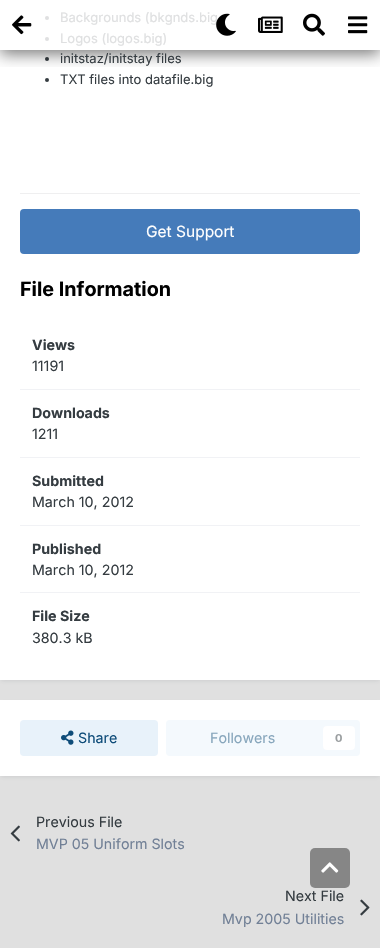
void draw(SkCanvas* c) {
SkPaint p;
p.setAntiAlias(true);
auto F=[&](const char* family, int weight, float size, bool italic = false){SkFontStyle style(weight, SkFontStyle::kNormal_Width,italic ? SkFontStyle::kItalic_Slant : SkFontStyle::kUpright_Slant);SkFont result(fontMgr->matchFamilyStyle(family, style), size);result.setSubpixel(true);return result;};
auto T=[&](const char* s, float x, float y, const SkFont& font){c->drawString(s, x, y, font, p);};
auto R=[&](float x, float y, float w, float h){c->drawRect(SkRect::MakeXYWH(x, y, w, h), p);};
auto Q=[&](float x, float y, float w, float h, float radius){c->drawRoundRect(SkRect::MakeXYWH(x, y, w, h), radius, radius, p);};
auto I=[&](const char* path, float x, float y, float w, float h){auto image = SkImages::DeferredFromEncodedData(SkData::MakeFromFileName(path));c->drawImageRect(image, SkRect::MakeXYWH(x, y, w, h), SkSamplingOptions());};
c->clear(0xffe0e0e0);
p.setColor(0x1a272e36);
p.setMaskFilter(SkMaskFilter::MakeBlur(kNormal_SkBlurStyle, 2));
c->drawRect(SkRect::MakeXYWH(1,-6,378,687),p);
p.setMaskFilter(nullptr);
p.setColor(0xffffffff);
R(0,0,380,680);
p.setColor(0xffdfe0e1);
c->drawCircle(47,18,2,p);
c->drawCircle(47,39,2,p);
p.setColor(0xff353c41);
c->drawCircle(47,59,2,p);
c->save();
c->clipRect(SkRect::MakeXYWH(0,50,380,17));
p.setColor(0x87000000);
p.setMaskFilter(SkMaskFilter::MakeBlur(kNormal_SkBlurStyle, 7.5));
c->drawRect(SkRect::MakeXYWH(0,4,380,50),p);
p.setMaskFilter(nullptr);
c->restore();
I("1.png",12,15,20,20);
auto f1 = F("Inter",400,13);
p.setColor(0xffdfe0e1);
T("Backgrounds (bkgnds.big",60,22,f1);
I("2.png",216,13,20,23);
I("3.png",258,16,25,17);
I("4.png",303,13,22,23);
I("5.png",348,16,20,18);
T("Logos (logos.big)",60,43,f1);
p.setColor(0xff353c41);
T("initstaz/initstay files",60,63,f1);
c->drawCircle(47,80,2,p);
T("TXT files into datafile.big",60,84,f1);
p.setColor(0xffefeff0);
R(20,193,340,1);
p.setColor(0xff457bba);
Q(20,209,340,45,4);
auto f2 = F("Inter",400,15.5);
p.setColor(0xffffffff);
T("Get Support",146,237,f2);
auto f3 = F("Inter",700,19.75);
p.setColor(0xff000000);
T("File Information",20,296,f3);
p.setColor(0xfff1f2f5);
R(20,389,340,1);
auto f4 = F("Inter",700,14.25);
p.setColor(0xff353c41);
T("Views",32,350,f4);
auto f5 = F("Inter",400,14.25);
T("11191",32,371,f5);
p.setColor(0xfff1f2f5);
R(20,457,340,1);
p.setColor(0xff353c41);
T("Downloads",32,418,f4);
T("1211",32,439,f5);
p.setColor(0xfff1f2f5);
R(20,525,340,1);
p.setColor(0xff353c41);
T("Submitted",32,486,f4);
T("March 10, 2012",32,507,f5);
p.setColor(0xfff1f2f5);
R(20,592,340,1);
p.setColor(0xff353c41);
T("Published",32,554,f4);
T("March 10, 2012",32,575,f5);
T("File Size",32,621,f4);
T("380.3 kB",32,643,f5);
p.setColor(0x1a272e36);
p.setMaskFilter(SkMaskFilter::MakeBlur(kNormal_SkBlurStyle, 2));
c->drawRect(SkRect::MakeXYWH(1,703,378,74),p);
p.setMaskFilter(nullptr);
p.setColor(0xffffffff);
R(0,700,380,76);
p.setColor(0xffe8f2fa);
Q(20,720,138,36,4);
I("6.png",61,730,13,15);
p.setColor(0xff0e4c79);
T("Share",78,743,f5);
p.setColor(0xfff4f9fd);
Q(166,720,194,36,4);
p.setColor(0xff87a6bc);
T("Followers",210,743,f5);
p.setColor(0xffffffff);
Q(323,726,32,24,4);
auto f6 = F("Inter",700,11);
p.setColor(0xff9a9ea0);
T("0",335,742,f6);
p.setColor(0xff353c41);
T("Previous File",36,827,f5);
I("7.png",10,825,10,17);
p.setColor(0xff718096);
T("MVP 05 Uniform Slots",36,849,f5);
p.setColor(0xff353c41);
T("Next File",285,901,f5);
I("8.png",360,899,10,17);
p.setColor(0xff718096);
T("Mvp 2005 Utilities",222,924,f5);
p.setColor(0xff868686);
Q(310,848,40,40,5);
I("9.png",321,862,18,11);
}
